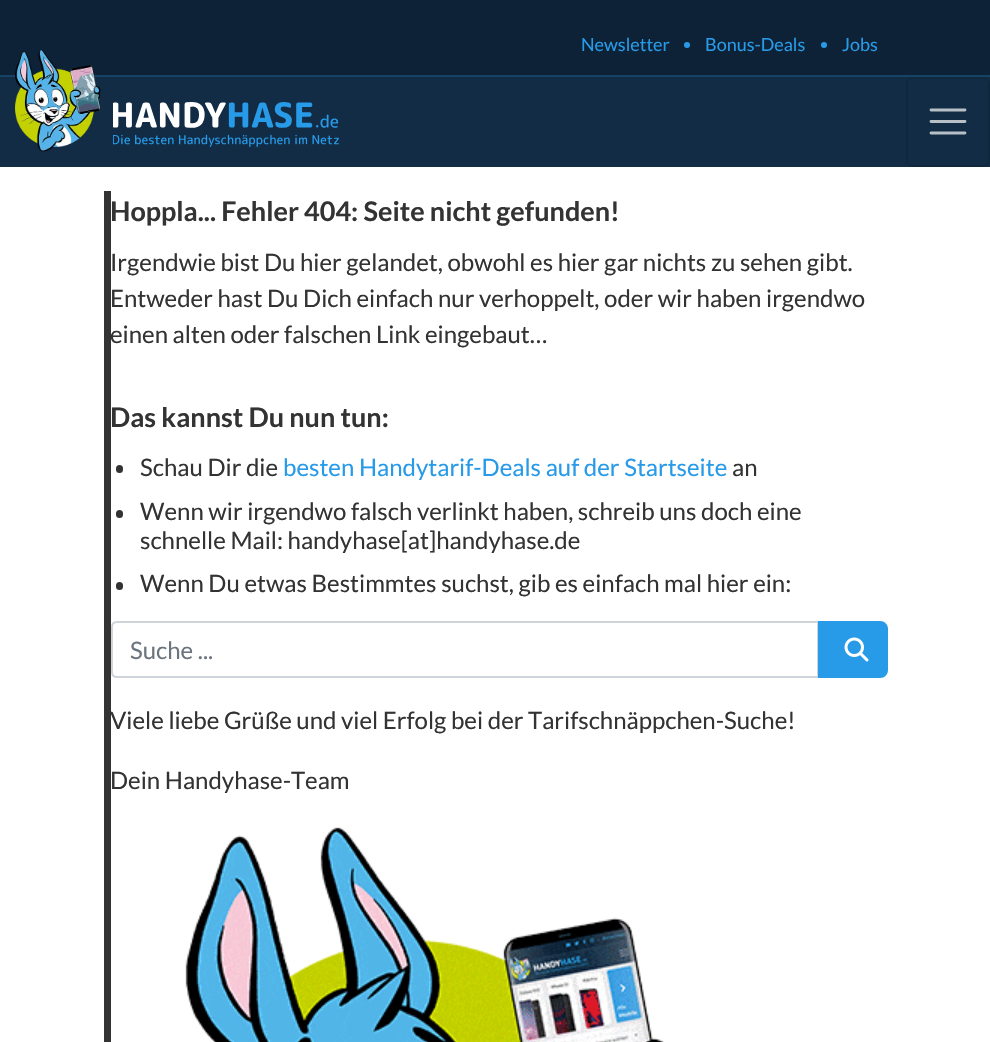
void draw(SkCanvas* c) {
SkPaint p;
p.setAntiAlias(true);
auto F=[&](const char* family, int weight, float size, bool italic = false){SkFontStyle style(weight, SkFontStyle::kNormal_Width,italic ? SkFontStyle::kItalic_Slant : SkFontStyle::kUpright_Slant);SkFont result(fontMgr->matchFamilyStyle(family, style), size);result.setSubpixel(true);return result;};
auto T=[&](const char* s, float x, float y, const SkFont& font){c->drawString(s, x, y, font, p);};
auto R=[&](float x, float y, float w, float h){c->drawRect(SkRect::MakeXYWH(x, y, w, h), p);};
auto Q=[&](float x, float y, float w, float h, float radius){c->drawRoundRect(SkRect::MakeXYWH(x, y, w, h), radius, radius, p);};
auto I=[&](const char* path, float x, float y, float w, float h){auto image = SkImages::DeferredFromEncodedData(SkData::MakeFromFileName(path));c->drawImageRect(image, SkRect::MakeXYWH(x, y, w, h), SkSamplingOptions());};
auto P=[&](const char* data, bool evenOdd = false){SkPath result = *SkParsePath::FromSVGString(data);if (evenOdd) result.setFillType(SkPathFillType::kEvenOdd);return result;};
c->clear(0xff0d2236);
auto f1 = F("Lato",400,18);
p.setColor(0xff279ae8);
T("Newsletter",581,51,f1);
c->drawCircle(687,45,3,p);
T("Bonus-Deals",705,51,f1);
c->drawCircle(824,45,3,p);
T("Jobs",842,51,f1);
p.setColor(0xff122c45);
R(0,77,990,90);
p.setColor(0xff164266);
R(0,75,990,2);
I("1.png",15,49,86,103);
I("2.png",113,102,226,45);
p.setStroke(true);
p.setStrokeWidth(2);
p.setColor(0xff10283e);
c->drawRoundRect(SkRect::MakeXYWH(907,78,82,88),5,5,p);
p.setStrokeWidth(2.8);
p.setStrokeCap(SkPaint::kRound_Cap);
p.setColor(0xffb8c0c7);
c->drawPath(P("M931 110h34m-34 11.5h34m-34 11.5h34"),p);
p.setStroke(false);
p.setColor(0xffffffff);
R(0,167,990,875);
p.setColor(0xff333333);
R(104,191,7,851);
auto f2 = F("Lato",700,27);
T("Hoppla... Fehler 404: Seite nicht gefunden!",110,221,f2);
auto f3 = F("Lato",400,24);
T("Irgendwie bist Du hier gelandet, obwohl es hier gar nichts zu sehen gibt.",110,271,f3);
T("Entweder hast Du Dich einfach nur verhoppelt, oder wir haben irgendwo",110,307,f3);
T("einen alten oder falschen Link eingebaut…",110,343,f3);
T("Das kannst Du nun tun:",110,427,f2);
Q(116,465,7,8,3.5);
T("Schau Dir die",140,476,f3);
p.setColor(0xff279ae8);
T("besten Handytarif-Deals auf der Startseite",283,476,f3);
p.setColor(0xff333333);
T("an",732,476,f3);
Q(116,510,7,8,3.5);
T("Wenn wir irgendwo falsch verlinkt haben, schreib uns doch eine",140,520,f3);
T("schnelle Mail: handyhase[at]handyhase.de",140,549,f3);
Q(116,582,7,8,3.5);
T("Wenn Du etwas Bestimmtes suchst, gib es einfach mal hier ein:",140,592,f3);
p.setStroke(true);
p.setStrokeWidth(2);
p.setStrokeCap(SkPaint::kButt_Cap);
p.setColor(0xffced4da);
c->drawPath(P("M117 622h701v55h-701c-3 0-5-2-5-5v-45c0-3 2-5 5-5z"),p);
p.setStroke(false);
p.setColor(0xff6c757d);
T("Suche ...",130,659,f3);
p.setColor(0xff279ae8);
c->drawPath(P("M818 621h62c4.5 0 8 3.5 8 8v41c0 4.5-3.5 8-8 8h-62z"),p);
I("3.png",844,637,25,25);
p.setColor(0xff333333);
T("Viele liebe Grüße und viel Erfolg bei der Tarifschnäppchen-Suche!",110,729,f3);
T("Dein Handyhase-Team",110,789,f3);
I("4.png",185,827,479,215);
}
